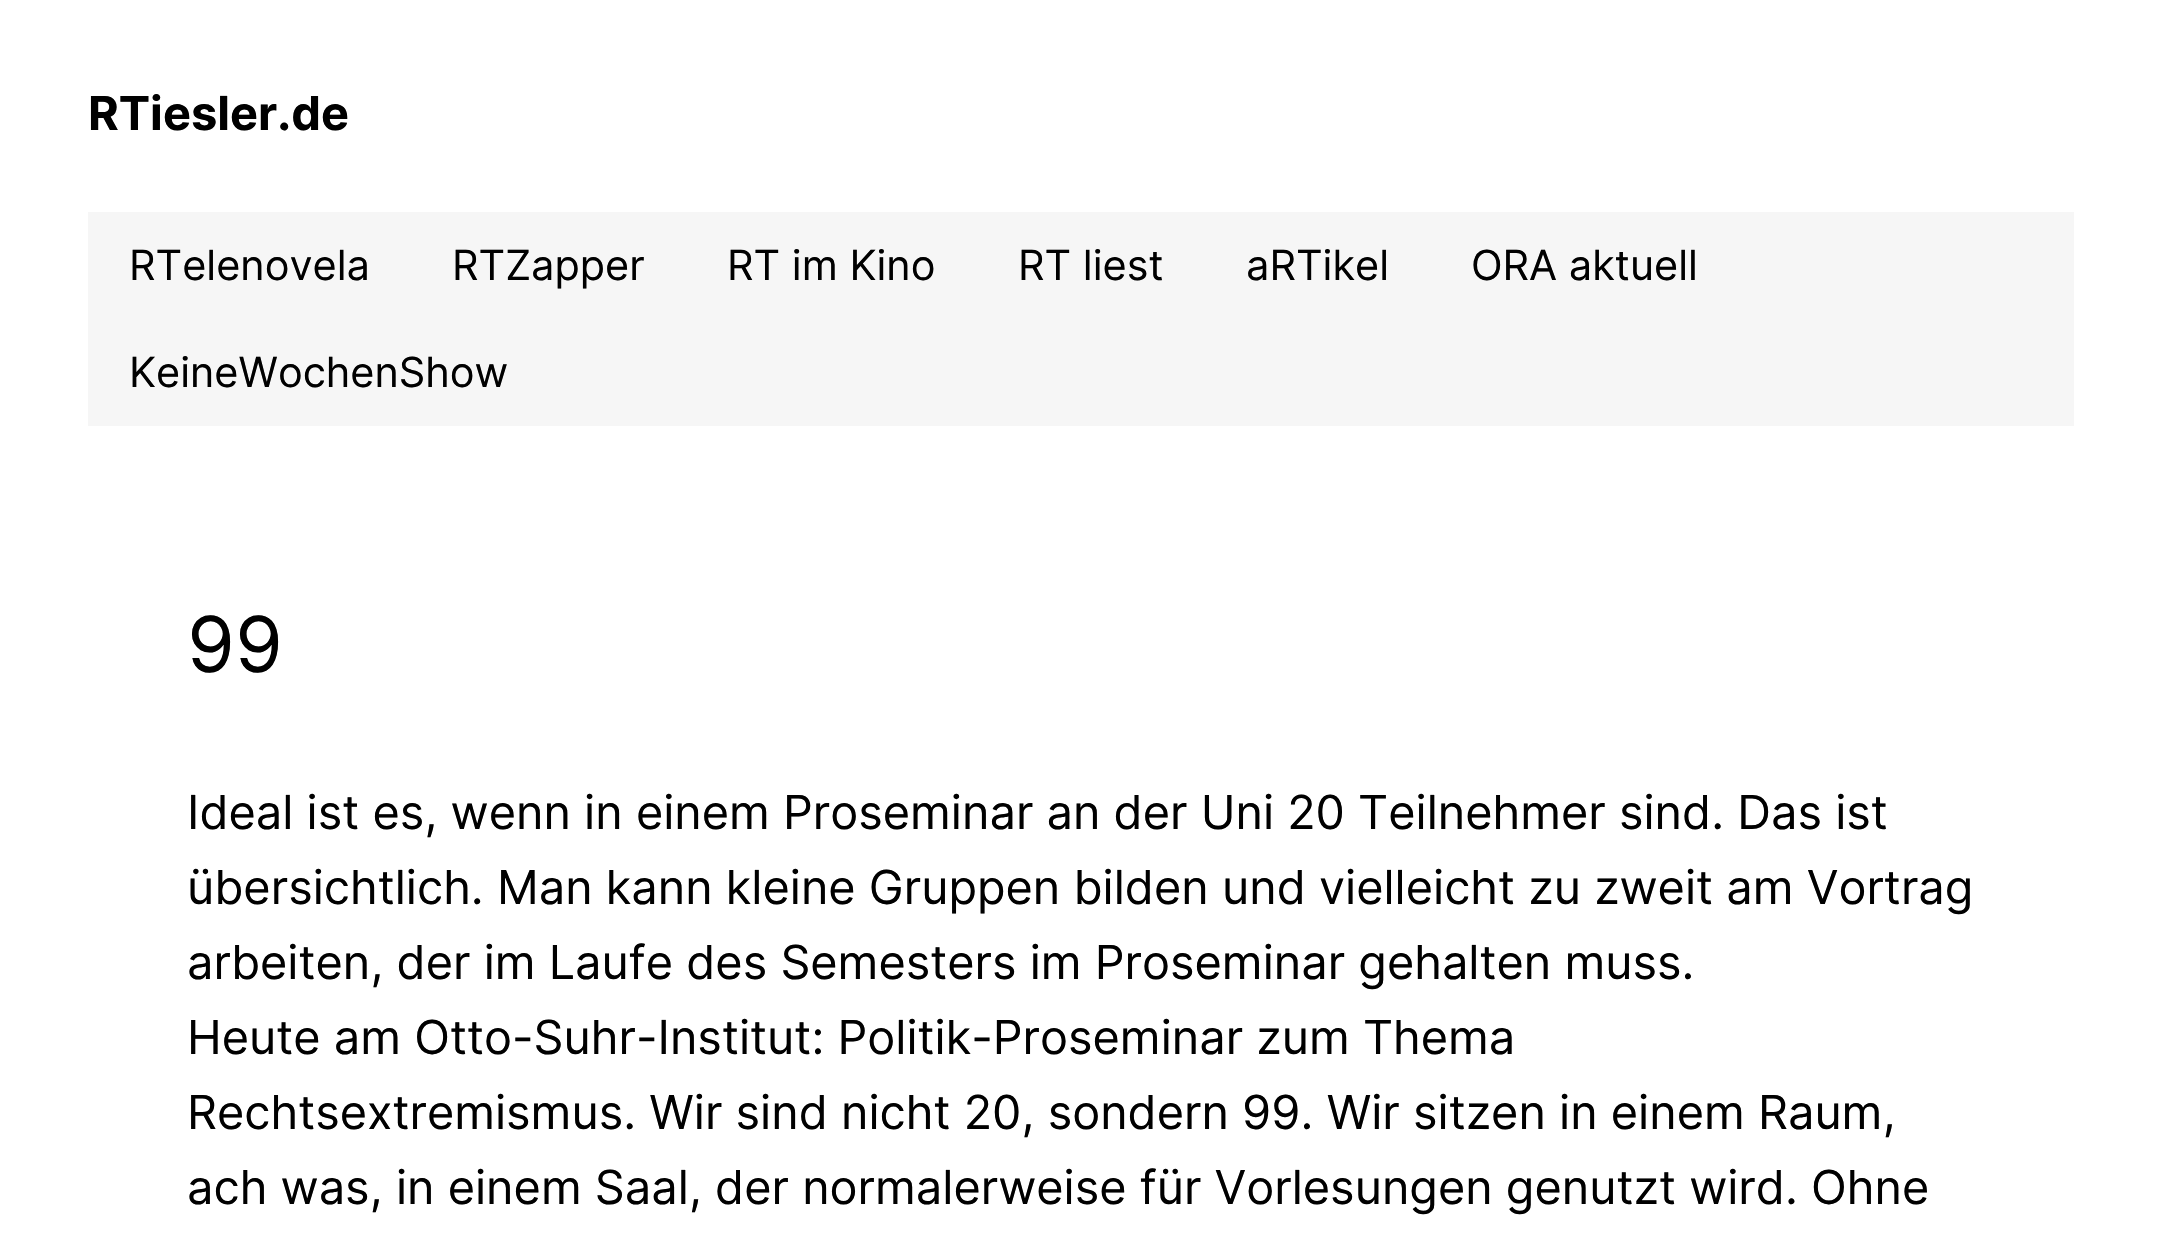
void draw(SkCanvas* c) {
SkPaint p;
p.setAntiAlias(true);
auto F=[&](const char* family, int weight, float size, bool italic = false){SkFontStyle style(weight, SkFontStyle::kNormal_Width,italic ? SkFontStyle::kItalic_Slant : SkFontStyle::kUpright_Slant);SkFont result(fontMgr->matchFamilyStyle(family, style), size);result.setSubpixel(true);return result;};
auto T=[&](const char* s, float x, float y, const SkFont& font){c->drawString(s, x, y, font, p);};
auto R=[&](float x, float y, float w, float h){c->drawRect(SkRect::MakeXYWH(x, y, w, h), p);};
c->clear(0xffffffff);
auto f1 = F("Inter",700,46.9);
p.setColor(0xff000000);
T("RTiesler.de",88,130,f1);
p.setColor(0xfff6f6f6);
R(88,212,1986,214);
auto f2 = F("Inter",400,41.5);
p.setColor(0xff000000);
T("RTelenovela",129,280,f2);
T("RTZapper",452,280,f2);
T("RT im Kino",727,280,f2);
T("RT liest",1018,280,f2);
T("aRTikel",1246,280,f2);
T("ORA aktuell",1471,280,f2);
T("KeineWochenShow",129,387,f2);
auto f3 = F("Inter",400,77);
T("99",187,672,f3);
auto f4 = F("Inter",400,46.9);
T("Ideal ist es, wenn in einem Proseminar an der Uni 20 Teilnehmer sind. Das ist",187,829,f4);
T("übersichtlich. Man kann kleine Gruppen bilden und vielleicht zu zweit am Vortrag",187,904,f4);
T("arbeiten, der im Laufe des Semesters im Proseminar gehalten muss.",187,979,f4);
T("Heute am Otto-Suhr-Institut: Politik-Proseminar zum Thema",187,1054,f4);
T("Rechtsextremismus. Wir sind nicht 20, sondern 99. Wir sitzen in einem Raum,",187,1129,f4);
T("ach was, in einem Saal, der normalerweise für Vorlesungen genutzt wird. Ohne",187,1204,f4);
}
